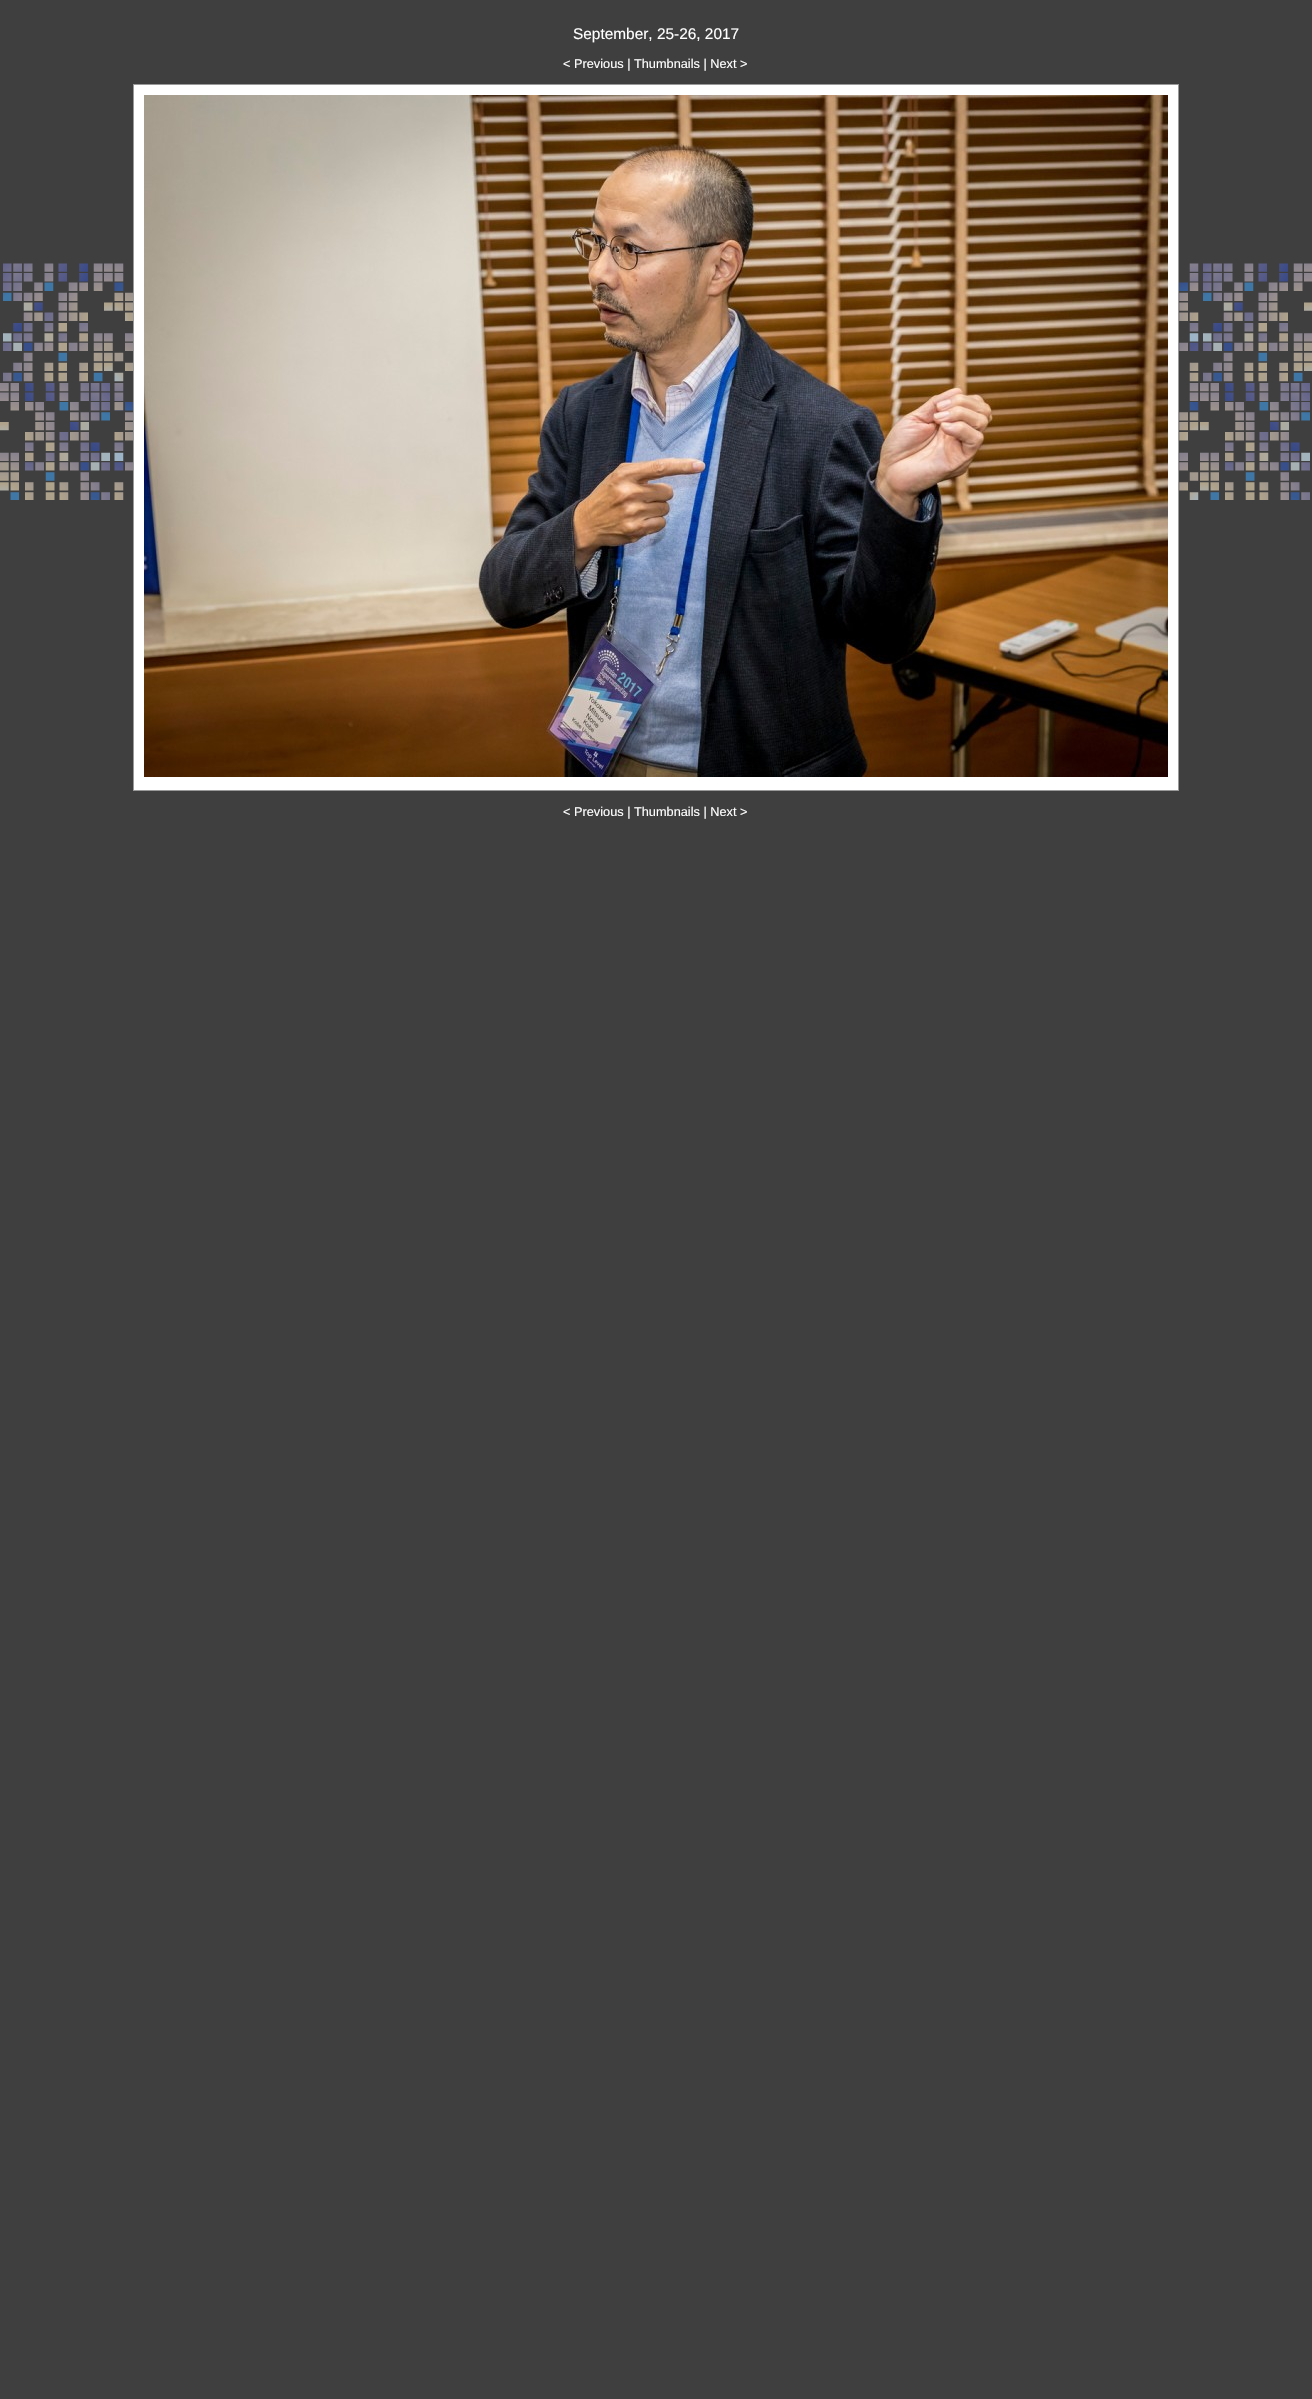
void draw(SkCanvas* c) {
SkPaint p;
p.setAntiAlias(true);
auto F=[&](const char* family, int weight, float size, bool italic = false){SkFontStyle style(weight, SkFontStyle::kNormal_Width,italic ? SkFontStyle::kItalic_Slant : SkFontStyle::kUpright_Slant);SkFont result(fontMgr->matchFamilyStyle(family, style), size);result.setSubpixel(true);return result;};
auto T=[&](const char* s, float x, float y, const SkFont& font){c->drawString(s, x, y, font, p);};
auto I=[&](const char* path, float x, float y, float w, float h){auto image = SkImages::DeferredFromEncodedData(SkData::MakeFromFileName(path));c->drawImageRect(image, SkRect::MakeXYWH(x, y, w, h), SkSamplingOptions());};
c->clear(0xff3f3f3f);
I("1.png",0,263,1312,237);
auto f1 = F("Liberation Sans",400,15.4);
p.setColor(0xffffffff);
T("September, 25-26, 2017",573,39,f1);
auto f2 = F("Liberation Sans",400,12.75);
T("< Previous | Thumbnails | Next >",563,68,f2);
c->drawRect(SkRect::MakeXYWH(133.5,84.5,1045,706),p);
p.setStroke(true);
p.setStrokeWidth(1);
p.setColor(0xff999999);
c->drawRect(SkRect::MakeXYWH(133.5,84.5,1045,706),p);
I("2.png",144,95,1024,682);
p.setStroke(false);
p.setColor(0xffffffff);
T("< Previous | Thumbnails | Next >",563,816,f2);
}
